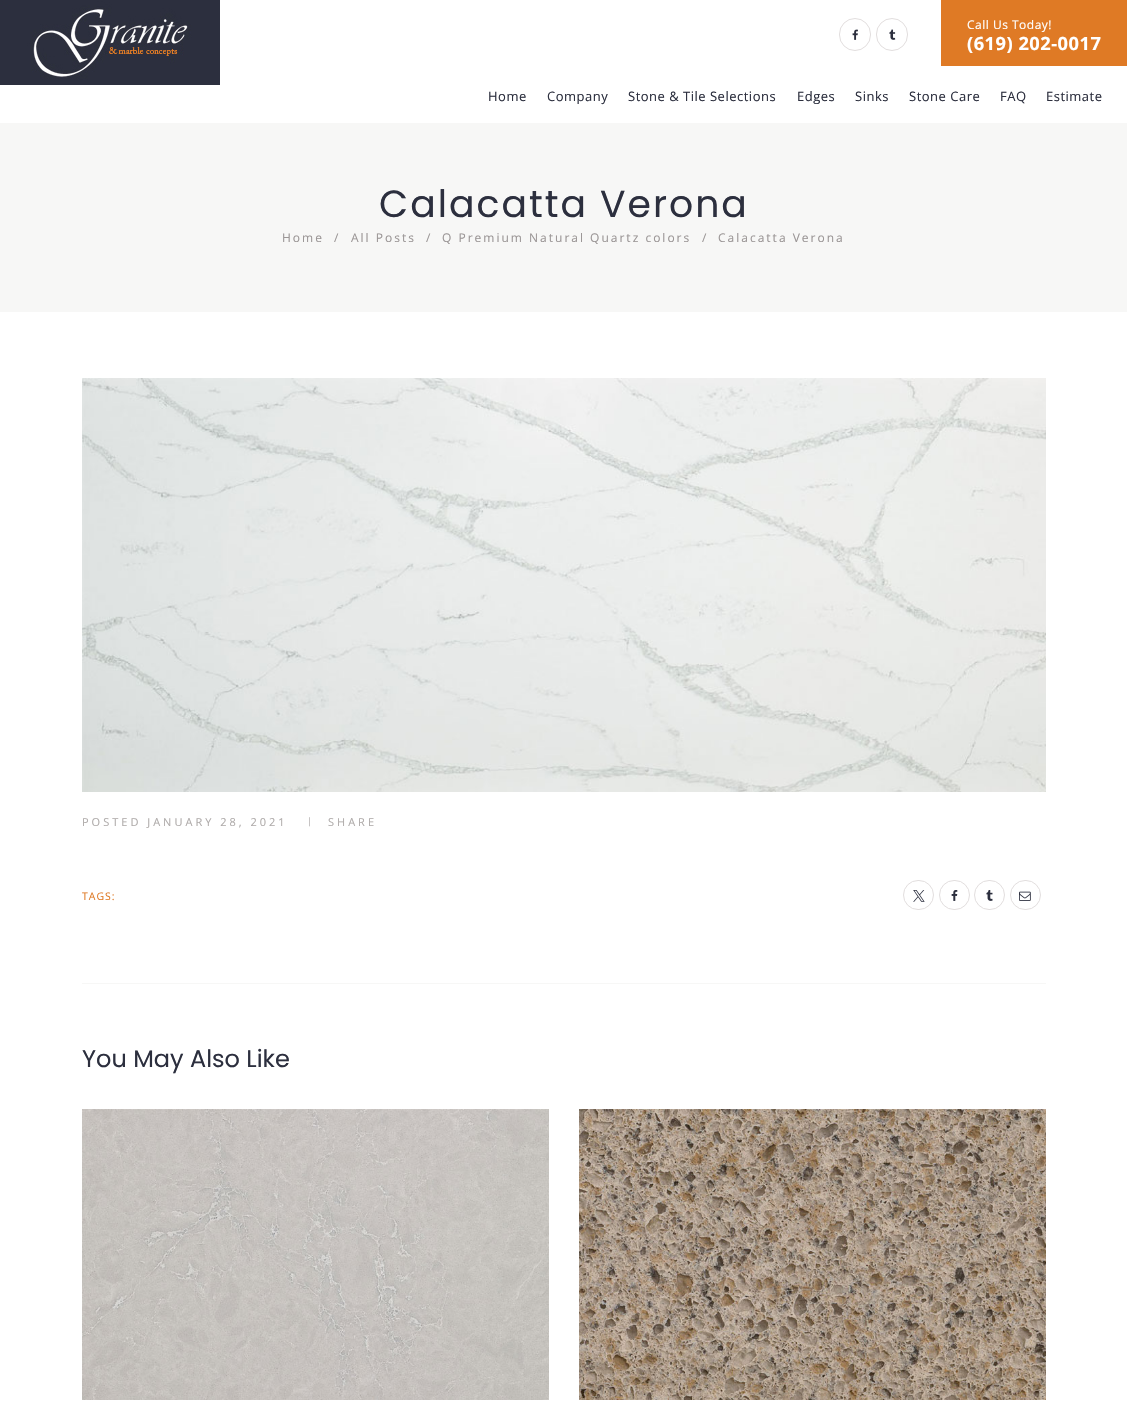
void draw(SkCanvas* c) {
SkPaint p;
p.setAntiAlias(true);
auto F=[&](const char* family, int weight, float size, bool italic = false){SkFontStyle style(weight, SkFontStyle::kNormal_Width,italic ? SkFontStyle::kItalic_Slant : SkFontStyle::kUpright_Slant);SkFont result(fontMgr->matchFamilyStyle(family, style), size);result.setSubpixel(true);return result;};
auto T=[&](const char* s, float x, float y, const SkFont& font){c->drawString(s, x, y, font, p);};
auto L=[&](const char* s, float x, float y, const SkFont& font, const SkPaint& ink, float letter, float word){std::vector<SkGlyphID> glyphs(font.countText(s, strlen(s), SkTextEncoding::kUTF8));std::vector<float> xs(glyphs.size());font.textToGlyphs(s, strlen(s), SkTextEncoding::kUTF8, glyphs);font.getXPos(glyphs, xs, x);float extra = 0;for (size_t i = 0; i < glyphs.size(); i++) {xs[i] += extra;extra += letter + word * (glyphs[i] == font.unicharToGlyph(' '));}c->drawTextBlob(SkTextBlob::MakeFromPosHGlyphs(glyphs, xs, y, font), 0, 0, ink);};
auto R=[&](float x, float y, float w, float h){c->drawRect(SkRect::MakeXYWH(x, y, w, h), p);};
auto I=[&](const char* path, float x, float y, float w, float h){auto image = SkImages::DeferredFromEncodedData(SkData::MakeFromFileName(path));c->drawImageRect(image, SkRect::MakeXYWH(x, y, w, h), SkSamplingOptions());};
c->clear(0xffffffff);
I("1.png",0,0,220,85);
p.setStroke(true);
p.setStrokeWidth(1);
p.setColor(0xffe2dede);
c->drawRoundRect(SkRect::MakeXYWH(839.5,18.5,31,32),15.5,15.5,p);
I("2.png",852,29,6,11);
c->drawRoundRect(SkRect::MakeXYWH(876.5,18.5,31,32),15.5,15.5,p);
I("3.png",889,29,7,11);
p.setStroke(false);
p.setColor(0xffdf7a25);
R(941,0,186,66);
auto f1 = F("Open Sans",400,12);
p.setColor(0xffffffff);
L("Call Us Today!",967,29,f1,p,.5,0);
auto f2 = F("Open Sans",700,18.25);
L("(619) 202-0017",967,50,f2,p,.5,0);
auto f3 = F("Open Sans",400,13);
p.setColor(0xff2c2f3e);
L("Home",488,101,f3,p,.5,0);
L("Company",547,101,f3,p,.5,0);
L("Stone & Tile Selections",628,101,f3,p,.5,0);
L("Edges",797,101,f3,p,.5,0);
L("Sinks",855,101,f3,p,.5,0);
L("Stone Care",909,101,f3,p,.5,0);
L("FAQ",1000,101,f3,p,.5,0);
L("Estimate",1046,101,f3,p,.5,0);
p.setColor(0xfff7f7f6);
R(0,123,1127,189);
auto f4 = F("Poppins",400,37.75);
p.setColor(0xff2c2f3e);
L("Calacatta Verona",379,217,f4,p,2,0);
p.setColor(0xff9b9696);
L("Home",282,242,f1,p,2,0);
L("/",334,242,f1,p,2,0);
L("All Posts",351,242,f1,p,2,0);
L("/",426,242,f1,p,2,0);
L("Q Premium Natural Quartz colors",442,242,f1,p,2,0);
L("/",702,242,f1,p,2,0);
L("Calacatta Verona",718,242,f1,p,2,0);
I("4.png",82,378,964,414);
auto f5 = F("Open Sans",400,11);
p.setColor(0xffafabaa);
L("POSTED JANUARY 28, 2021",82,826,f5,p,3,0);
auto f6 = F("Open Sans",400,9);
L("|",307,824,f6,p,3,0);
L("SHARE",328,826,f5,p,3,0);
auto f7 = F("Open Sans",400,10.5);
p.setColor(0xffdf7a25);
L("TAGS:",82,900,f7,p,1,0);
p.setStroke(true);
p.setColor(0xffe2dede);
c->drawRoundRect(SkRect::MakeXYWH(903.5,880.5,30,29),14.5,14.5,p);
I("5.png",913,890,12,12);
c->drawRoundRect(SkRect::MakeXYWH(939.5,880.5,30,29),14.5,14.5,p);
I("6.png",951,890,7,11);
c->drawRoundRect(SkRect::MakeXYWH(974.5,880.5,30,29),14.5,14.5,p);
I("7.png",986,890,7,11);
c->drawRoundRect(SkRect::MakeXYWH(1010.5,880.5,30,29),14.5,14.5,p);
I("8.png",1019,891,12,10);
p.setStroke(false);
p.setColor(0xfff7f7f6);
R(82,983,964,1);
auto f8 = F("Poppins",400,24);
p.setColor(0xff2c2f3e);
T("You May Also Like",82,1067,f8);
I("9.png",82,1109,467,291);
I("10.png",579,1109,467,291);
}
